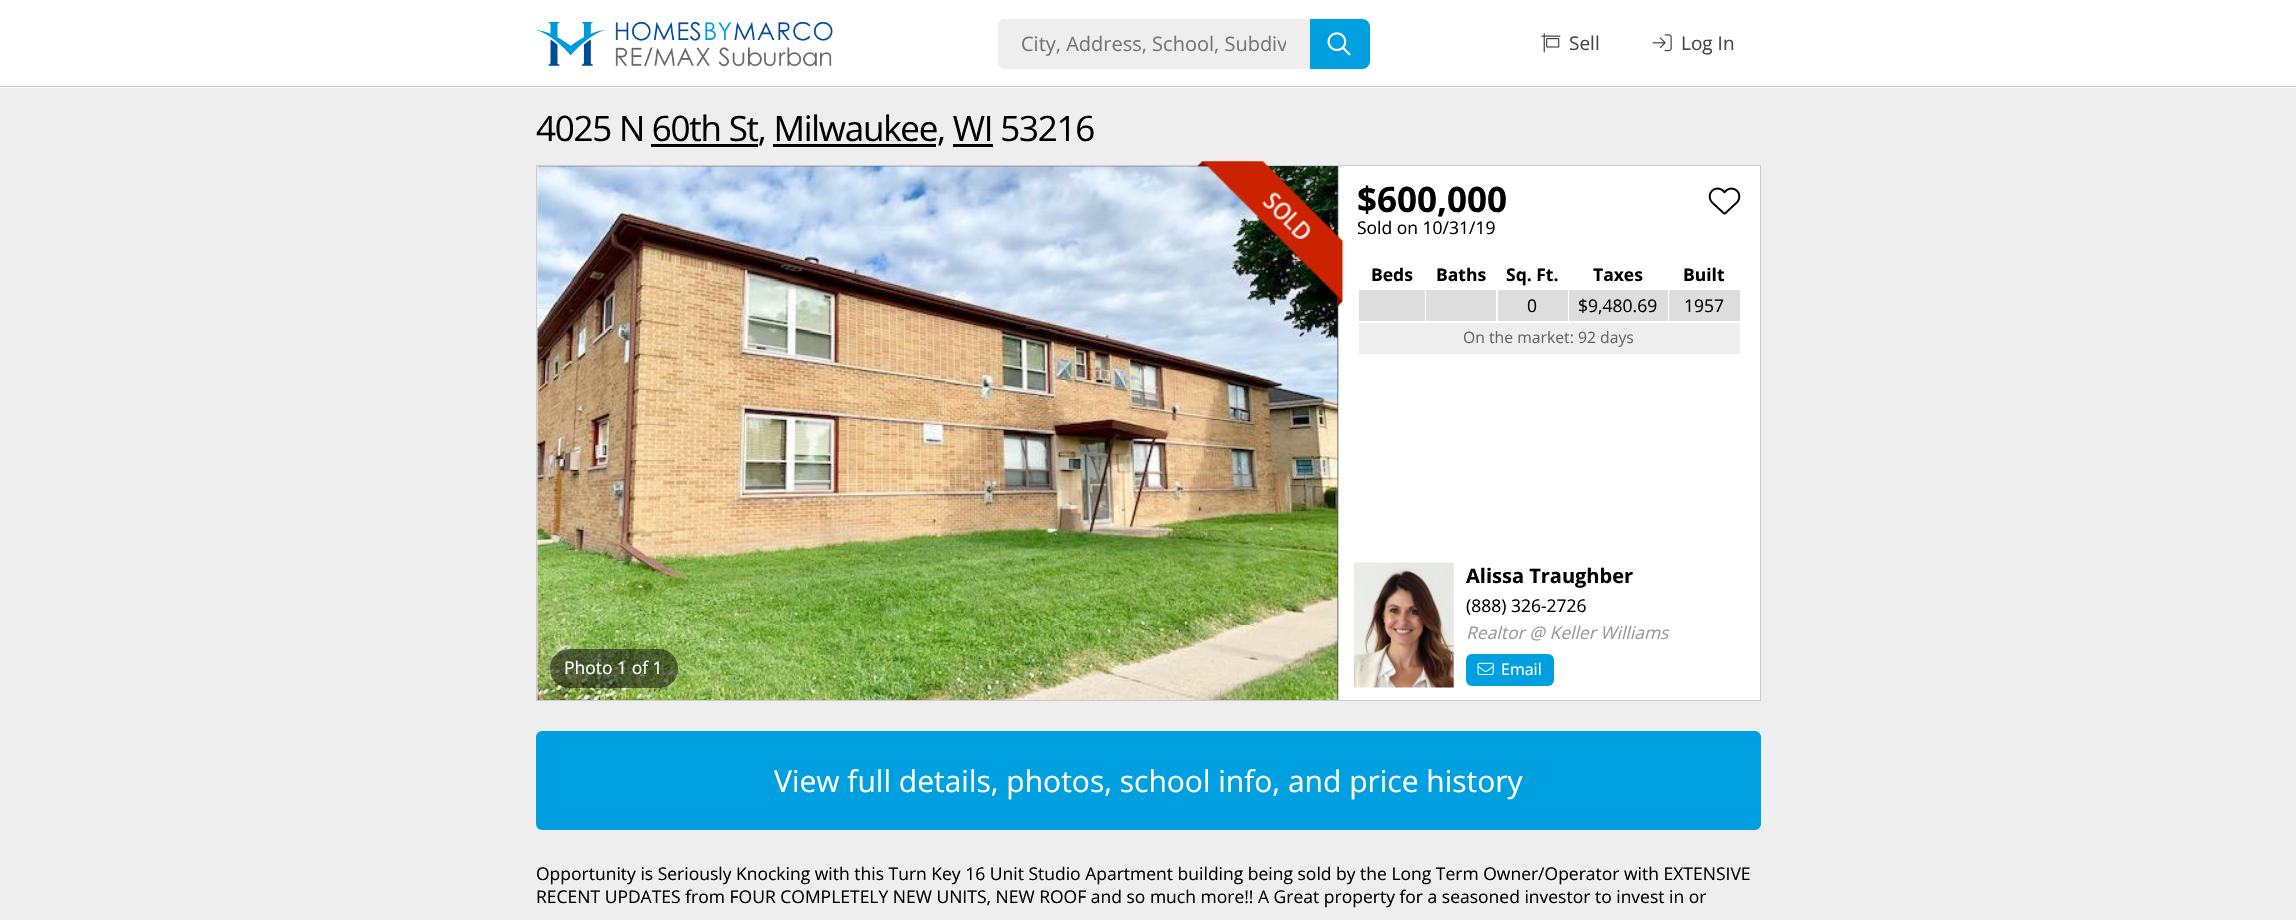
void draw(SkCanvas* c) {
SkPaint p;
p.setAntiAlias(true);
auto F=[&](const char* family, int weight, float size, bool italic = false){SkFontStyle style(weight, SkFontStyle::kNormal_Width,italic ? SkFontStyle::kItalic_Slant : SkFontStyle::kUpright_Slant);SkFont result(fontMgr->matchFamilyStyle(family, style), size);result.setSubpixel(true);return result;};
auto T=[&](const char* s, float x, float y, const SkFont& font){c->drawString(s, x, y, font, p);};
auto L=[&](const char* s, float x, float y, const SkFont& font, const SkPaint& ink, float letter, float word){std::vector<SkGlyphID> glyphs(font.countText(s, strlen(s), SkTextEncoding::kUTF8));std::vector<float> xs(glyphs.size());font.textToGlyphs(s, strlen(s), SkTextEncoding::kUTF8, glyphs);font.getXPos(glyphs, xs, x);float extra = 0;for (size_t i = 0; i < glyphs.size(); i++) {xs[i] += extra;extra += letter + word * (glyphs[i] == font.unicharToGlyph(' '));}c->drawTextBlob(SkTextBlob::MakeFromPosHGlyphs(glyphs, xs, y, font), 0, 0, ink);};
auto R=[&](float x, float y, float w, float h){c->drawRect(SkRect::MakeXYWH(x, y, w, h), p);};
auto Q=[&](float x, float y, float w, float h, float radius){c->drawRoundRect(SkRect::MakeXYWH(x, y, w, h), radius, radius, p);};
auto I=[&](const char* path, float x, float y, float w, float h){auto image = SkImages::DeferredFromEncodedData(SkData::MakeFromFileName(path));c->drawImageRect(image, SkRect::MakeXYWH(x, y, w, h), SkSamplingOptions());};
auto P=[&](const char* data, bool evenOdd = false){SkPath result = *SkParsePath::FromSVGString(data);if (evenOdd) result.setFillType(SkPathFillType::kEvenOdd);return result;};
c->clear(0xffeeeeee);
p.setColor(0xffffffff);
R(0,0,2296,88);
p.setColor(0xffcccccc);
R(0,86,2296,1);
I("1.png",536,22,297,45);
p.setColor(0xffeeeeee);
c->drawPath(P("M1004 19h306v50h-306c-3.5 0-6-2.5-6-6v-38c0-3.5 2.5-6 6-6z"),p);
c->save();
c->clipRect(SkRect::MakeXYWH(1021,30,265,28));
auto f1 = F("Open Sans",400,20);
p.setColor(0xff757575);
T("City, Address, School, Subdiv",1021,51,f1);
c->restore();
p.setColor(0xff00a0e0);
c->drawPath(P("M1310 19h52c4.5 0 8 3.5 8 8v34c0 4.5-3.5 8-8 8h-52z"),p);
I("2.png",1327,32,24,24);
I("3.png",1541,33,20,20);
auto f2 = F("Open Sans",400,19);
p.setColor(0xff444444);
T("Sell",1569,50,f2);
I("4.png",1652,34,20,18);
T("Log In",1681,50,f2);
auto f3 = F("Open Sans",400,35);
p.setColor(0xff000000);
L("4025 N 60th St, Milwaukee, WI 53216",536,141,f3,p,-1.25,0);
R(651,144,107,3);
R(773,144,163,3);
R(953,144,40,3);
p.setStroke(true);
p.setStrokeWidth(1);
p.setColor(0xffcccccc);
c->drawRect(SkRect::MakeXYWH(536.5,165.5,1224,535),p);
p.setStroke(false);
p.setColor(0xff444444);
R(538,166,800,534);
I("6.png",537,166,801,534);
p.setColor(0xffffffff);
R(1339,166,421,534);
p.setColor(0xffcccccc);
R(1338,166,1,534);
I("5.png",1197,161,146,146);
p.setColor(0x80000000);
Q(550,649,128,39,19);
auto f4 = F("Open Sans",400,17.5);
p.setColor(0xffffffff);
T("Photo 1 of 1",564,674,f4);
auto f5 = F("Open Sans",700,35);
p.setColor(0xff000000);
T("$600,000",1357,212,f5);
I("7.png",1708,187,33,28);
T("Sold on 10/31/19",1357,234,f4);
auto f6 = F("Open Sans",700,17.5);
T("Beds",1371,281,f6);
T("Baths",1436,281,f6);
T("Sq. Ft.",1506,281,f6);
T("Taxes",1593,281,f6);
T("Built",1683,281,f6);
p.setColor(0xffdddddd);
R(1359,290,66,31);
R(1426,290,70,31);
R(1498,290,70,31);
p.setColor(0xff000000);
T("0",1527,312,f4);
p.setColor(0xffdddddd);
R(1569,290,99,31);
p.setColor(0xff000000);
T("$9,480.69",1578,312,f4);
p.setColor(0xffdddddd);
R(1669,290,71,31);
p.setColor(0xff000000);
T("1957",1684,312,f4);
p.setColor(0xffeeeeee);
R(1359,323,381,31);
auto f7 = F("Open Sans",400,15.75);
p.setColor(0xff666666);
T("On the market: 92 days",1463,343,f7);
I("8.png",1353,562,101,126);
auto f8 = F("Open Sans",700,20);
p.setColor(0xff000000);
T("Alissa Traughber",1466,583,f8);
T("(888) 326-2726",1466,612,f4);
auto f9 = F("Open Sans",400,17.5,true);
p.setColor(0xff999999);
T("Realtor @ Keller Williams",1466,639,f9);
p.setColor(0xff00a0e0);
Q(1466,654,88,32,6);
I("9.png",1477,662,17,13);
auto f10 = F("Open Sans",400,16);
p.setColor(0xffffffff);
T("Email",1501,675,f10);
p.setColor(0xff00a0e0);
Q(536,731,1225,99,6);
auto f11 = F("Open Sans",400,30);
p.setColor(0xffffffff);
T("View full details, photos, school info, and price history",774,792,f11);
p.setColor(0xff000000);
T("Opportunity is Seriously Knocking with this Turn Key 16 Unit Studio Apartment building being sold by the Long Term Owner/Operator with EXTENSIVE",536,880,f4);
T("RECENT UPDATES from FOUR COMPLETELY NEW UNITS, NEW ROOF and so much more!! A Great property for a seasoned investor to invest in or",536,903,f4);
}
